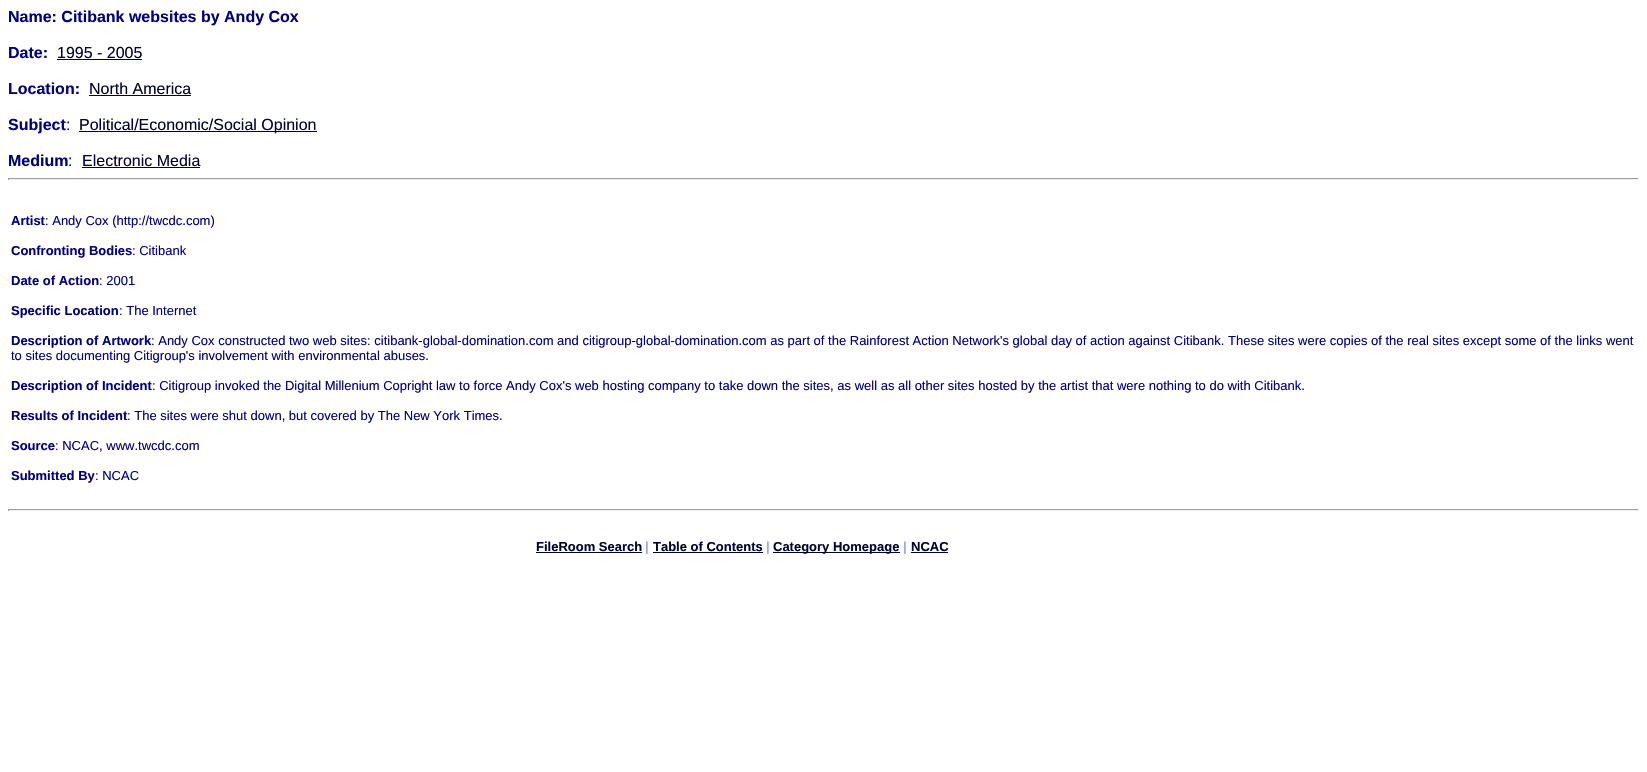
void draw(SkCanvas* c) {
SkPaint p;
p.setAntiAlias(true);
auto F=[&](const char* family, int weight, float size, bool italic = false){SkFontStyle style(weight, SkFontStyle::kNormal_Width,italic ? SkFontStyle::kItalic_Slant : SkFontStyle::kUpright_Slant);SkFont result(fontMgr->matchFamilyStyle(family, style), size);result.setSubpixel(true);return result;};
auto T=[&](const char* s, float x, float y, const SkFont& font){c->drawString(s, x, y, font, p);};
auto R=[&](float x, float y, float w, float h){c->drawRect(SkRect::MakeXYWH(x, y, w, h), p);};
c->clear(0xffffffff);
auto f1 = F("Liberation Sans",700,16);
p.setColor(0xff000080);
T("Name: Citibank websites by Andy Cox",8,22,f1);
T("Date:",8,58,f1);
auto f2 = F("Liberation Sans",400,16);
p.setColor(0xff000230);
T("1995 - 2005",57,58,f2);
R(57,59,85,1);
p.setColor(0xff000080);
T("Location:",8,94,f1);
p.setColor(0xff000230);
T("North America",89,94,f2);
R(89,95,102,1);
p.setColor(0xff000080);
T("Subject",8,130,f1);
T(":",66,130,f2);
p.setColor(0xff000230);
R(79,131,238,1);
T("Political/Economic/Social Opinion",79,130,f2);
p.setColor(0xff000080);
T("Medium",8,166,f1);
T(":",68,166,f2);
p.setColor(0xff000230);
T("Electronic Media",82,166,f2);
R(82,167,118,1);
p.setColor(0xff9f9f9f);
R(8,178,1631,1);
p.setColor(0xffeeeeee);
R(1638,178,1,2);
R(8,179,1631,1);
p.setColor(0xff9f9f9f);
R(8,178,1,2);
auto f3 = F("Liberation Sans",700,13);
p.setColor(0xff000080);
T("Artist",11,225,f3);
auto f4 = F("Liberation Sans",400,13);
T(": Andy Cox (http://twcdc.com)",45,225,f4);
T("Confronting Bodies",11,255,f3);
T(": Citibank",132,255,f4);
T("Date of Action",11,285,f3);
T(": 2001",99,285,f4);
T("Specific Location",11,315,f3);
T(": The Internet",119,315,f4);
T("Description of Artwork",11,345,f3);
T(": Andy Cox constructed two web sites: citibank-global-domination.com and citigroup-global-domination.com as part of the Rainforest Action Network's global day of action against Citibank. These sites were copies of the real sites except some of the links went",151,345,f4);
T("to sites documenting Citigroup's involvement with environmental abuses.",11,360,f4);
T("Description of Incident",11,390,f3);
T(": Citigroup invoked the Digital Millenium Copright law to force Andy Cox's web hosting company to take down the sites, as well as all other sites hosted by the artist that were nothing to do with Citibank.",152,390,f4);
T("Results of Incident",11,420,f3);
T(": The sites were shut down, but covered by The New York Times.",127,420,f4);
T("Source",11,450,f3);
T(": NCAC, www.twcdc.com",55,450,f4);
T("Submitted By",11,480,f3);
T(": NCAC",95,480,f4);
p.setColor(0xff9f9f9f);
R(8,509,1631,1);
p.setColor(0xffeeeeee);
R(1638,509,1,2);
R(8,510,1631,1);
p.setColor(0xff9f9f9f);
R(8,509,1,2);
p.setColor(0xff000230);
T("FileRoom Search",536,551,f3);
R(536,552,106,1);
p.setColor(0xff9ba2ff);
T("|",645,551,f3);
p.setColor(0xff000230);
T("Table of Contents",653,551,f3);
R(653,552,110,1);
p.setColor(0xff9ba2ff);
T("|",766,551,f3);
p.setColor(0xff000230);
R(773,552,127,1);
T("Category Homepage",773,551,f3);
p.setColor(0xff9ba2ff);
T("|",903,551,f3);
p.setColor(0xff000230);
T("NCAC",911,551,f3);
R(911,552,37,1);
}
